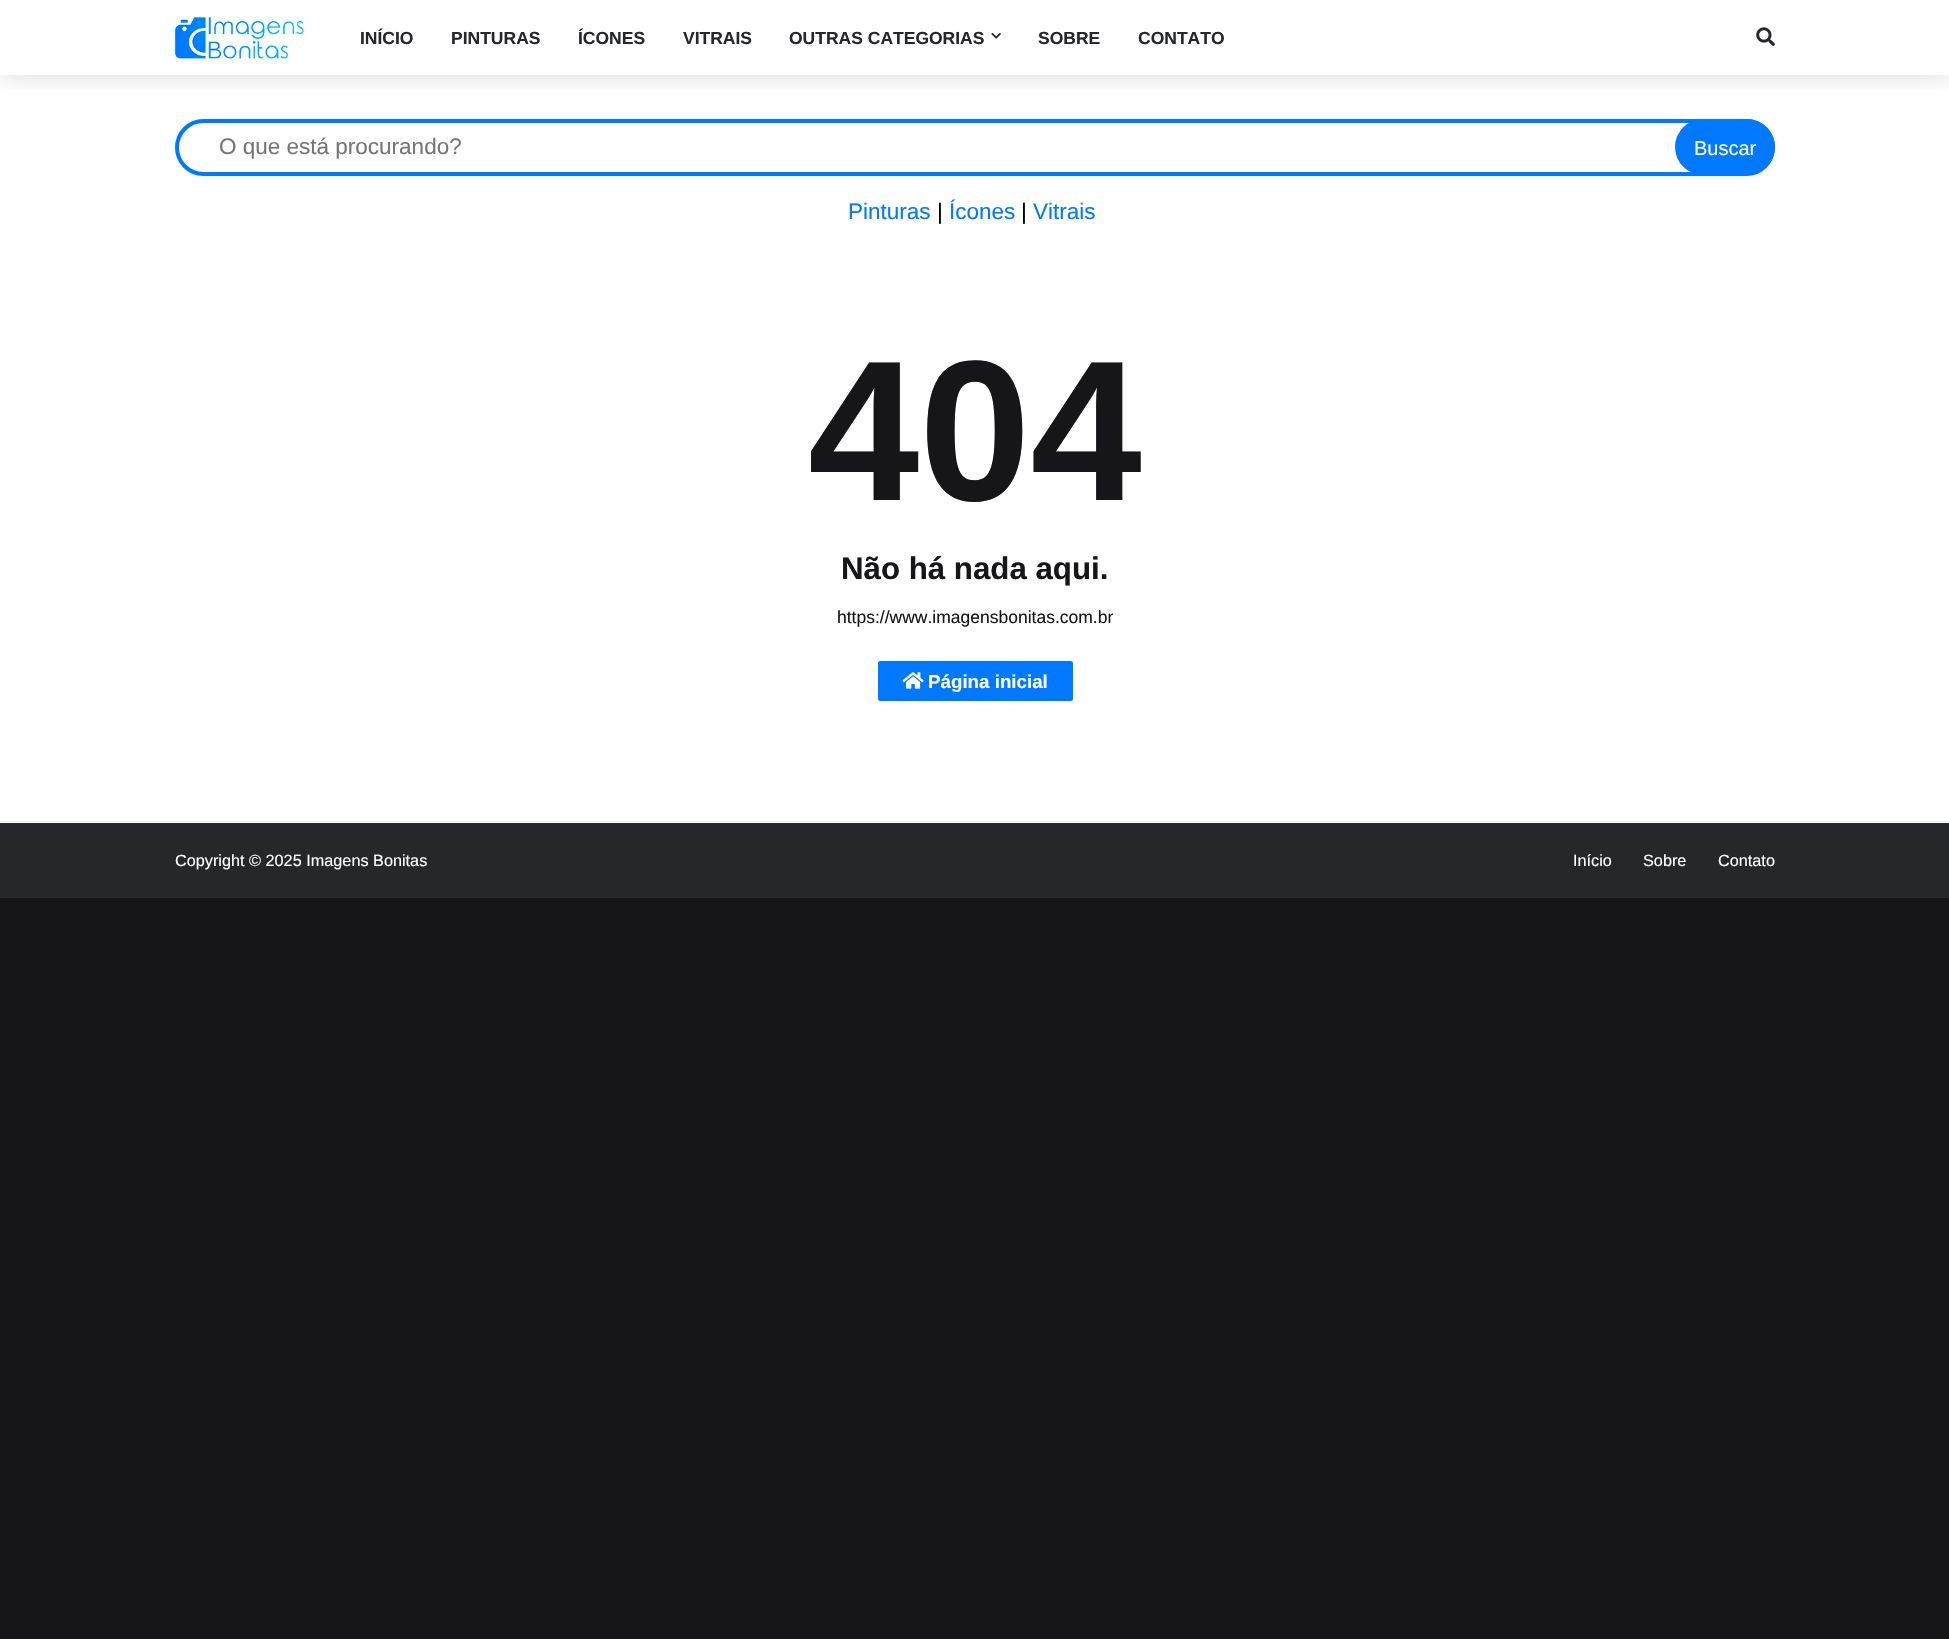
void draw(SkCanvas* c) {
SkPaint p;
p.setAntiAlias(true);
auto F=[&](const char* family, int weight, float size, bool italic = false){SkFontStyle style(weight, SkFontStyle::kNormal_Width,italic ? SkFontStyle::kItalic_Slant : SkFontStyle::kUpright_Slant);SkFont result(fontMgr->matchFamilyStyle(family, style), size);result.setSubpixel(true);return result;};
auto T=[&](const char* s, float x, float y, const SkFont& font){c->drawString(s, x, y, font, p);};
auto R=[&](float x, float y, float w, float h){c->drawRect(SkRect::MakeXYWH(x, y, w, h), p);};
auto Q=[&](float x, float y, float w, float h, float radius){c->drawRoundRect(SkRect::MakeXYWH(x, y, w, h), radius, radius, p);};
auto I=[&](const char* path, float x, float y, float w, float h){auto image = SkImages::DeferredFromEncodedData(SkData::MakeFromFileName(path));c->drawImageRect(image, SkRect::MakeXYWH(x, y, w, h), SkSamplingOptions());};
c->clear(0xff161619);
p.setColor(0xffffffff);
R(0,0,1949,823);
c->save();
c->clipRect(SkRect::MakeXYWH(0,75,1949,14));
p.setColor(0x26000000);
p.setMaskFilter(SkMaskFilter::MakeBlur(kNormal_SkBlurStyle, 12.5));
c->drawRect(SkRect::MakeXYWH(0,0,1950,75),p);
p.setMaskFilter(nullptr);
c->restore();
I("1.png",175,17,129,42);
auto f1 = F("Liberation Sans",700,17.5);
p.setColor(0xff26272b);
T("INÍCIO",360,44,f1);
T("PINTURAS",451,44,f1);
T("ÍCONES",578,44,f1);
T("VITRAIS",683,44,f1);
T("OUTRAS CATEGORIAS",789,44,f1);
I("2.png",991,32,10,7);
T("SOBRE",1038,44,f1);
T("CONTATO",1138,44,f1);
I("3.png",1756,27,19,19);
p.setStroke(true);
p.setStrokeWidth(4);
p.setColor(0xff0078ff);
c->drawRoundRect(SkRect::MakeXYWH(177,121,1596,53),26.5,26.5,p);
auto f2 = F("Liberation Sans",400,22.5);
p.setStroke(false);
p.setColor(0xff757575);
T("O que está procurando?",219,154,f2);
p.setColor(0xff0078ff);
Q(1675,119,100,56,28);
auto f3 = F("Liberation Sans",400,20);
p.setColor(0xffffffff);
T("Buscar",1694,155,f3);
p.setColor(0xff0078ff);
T("Pinturas",848,219,f2);
p.setColor(0xff000000);
T("|",937,219,f2);
p.setColor(0xff0078ff);
T("Ícones",949,219,f2);
p.setColor(0xff000000);
T("|",1021,219,f2);
p.setColor(0xff0078ff);
T("Vitrais",1033,219,f2);
auto f4 = F("Liberation Sans",700,200);
p.setColor(0xff161619);
T("404",808,500,f4);
auto f5 = F("Liberation Sans",700,31.25);
T("Não há nada aqui.",841,579,f5);
auto f6 = F("Liberation Sans",400,17.5);
T("https://www.imagensbonitas.com.br",837,623,f6);
p.setColor(0xff0078ff);
Q(878,661,195,40,2.5);
I("4.png",902,672,22,17);
auto f7 = F("Liberation Sans",700,18.75);
p.setColor(0xffffffff);
T("Página inicial",928,688,f7);
p.setColor(0xffeeeeee);
R(0,821,1949,1);
p.setColor(0xff26272b);
R(0,823,1949,75);
auto f8 = F("Liberation Sans",400,16.25);
p.setColor(0xffffffff);
T("Copyright © 2025 Imagens Bonitas",175,866,f8);
T("Início",1573,866,f8);
T("Sobre",1643,866,f8);
T("Contato",1718,866,f8);
}
